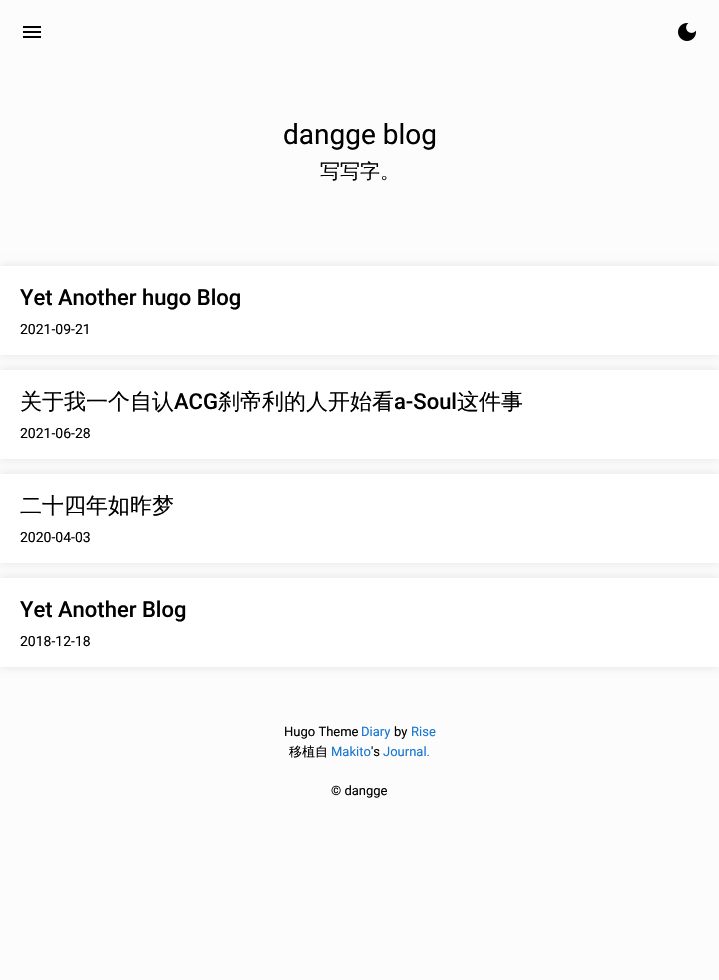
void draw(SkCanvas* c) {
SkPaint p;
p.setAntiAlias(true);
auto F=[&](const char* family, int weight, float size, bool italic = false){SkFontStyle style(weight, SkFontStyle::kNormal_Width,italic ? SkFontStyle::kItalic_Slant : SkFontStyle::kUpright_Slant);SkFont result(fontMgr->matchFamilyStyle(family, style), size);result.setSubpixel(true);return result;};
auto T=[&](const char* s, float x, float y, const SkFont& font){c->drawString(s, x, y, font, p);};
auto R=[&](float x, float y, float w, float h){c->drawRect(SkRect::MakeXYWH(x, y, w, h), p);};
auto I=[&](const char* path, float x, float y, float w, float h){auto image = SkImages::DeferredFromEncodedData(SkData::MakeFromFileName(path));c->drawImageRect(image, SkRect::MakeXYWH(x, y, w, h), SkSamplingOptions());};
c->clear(0xfffcfcfc);
I("1.png",23,26,18,12);
I("2.png",678,23,18,18);
auto f1 = F("Roboto",400,28);
p.setColor(0xff000000);
T("dangge blog",283,144,f1);
auto f2 = F("WenQuanYi Zen Hei",500,20);
T("写写字。",320,178,f2);
p.setColor(0x1a000000);
p.setMaskFilter(SkMaskFilter::MakeBlur(kNormal_SkBlurStyle, 4));
c->drawRect(SkRect::MakeXYWH(0,266,719,89),p);
p.setMaskFilter(nullptr);
p.setColor(0xffffffff);
R(0,266,719,89);
auto f3 = F("Roboto",500,22);
p.setColor(0xff000000);
T("Yet Another hugo Blog",20,305,f3);
auto f4 = F("Roboto",400,14);
T("2021-09-21",20,334,f4);
p.setColor(0x1a000000);
p.setMaskFilter(SkMaskFilter::MakeBlur(kNormal_SkBlurStyle, 4));
c->drawRect(SkRect::MakeXYWH(0,370,719,89),p);
p.setMaskFilter(nullptr);
p.setColor(0xffffffff);
R(0,370,719,89);
auto f5 = F("WenQuanYi Zen Hei",500,22);
p.setColor(0xff000000);
T("关于我一个自认",20,409,f5);
T("ACG",174,409,f3);
T("刹帝利的人开始看",218,409,f5);
T("a-Soul",394,409,f3);
T("这件事",457,409,f5);
T("2021-06-28",20,438,f4);
p.setColor(0x1a000000);
p.setMaskFilter(SkMaskFilter::MakeBlur(kNormal_SkBlurStyle, 4));
c->drawRect(SkRect::MakeXYWH(0,474,719,89),p);
p.setMaskFilter(nullptr);
p.setColor(0xffffffff);
R(0,474,719,89);
p.setColor(0xff000000);
T("二十四年如昨梦",20,513,f5);
T("2020-04-03",20,542,f4);
p.setColor(0x1a000000);
p.setMaskFilter(SkMaskFilter::MakeBlur(kNormal_SkBlurStyle, 4));
c->drawRect(SkRect::MakeXYWH(0,578,719,89),p);
p.setMaskFilter(nullptr);
p.setColor(0xffffffff);
R(0,578,719,89);
p.setColor(0xff000000);
T("Yet Another Blog",20,617,f3);
T("2018-12-18",20,646,f4);
auto f6 = F("Roboto",400,13);
T("Hugo Theme",284,736,f6);
p.setColor(0xff1976d2);
T("Diary",361,736,f6);
p.setColor(0xff000000);
T("by",394,736,f6);
p.setColor(0xff1976d2);
T("Rise",411,736,f6);
auto f7 = F("WenQuanYi Zen Hei",500,13);
p.setColor(0xff000000);
T("移植自",289,756,f7);
p.setColor(0xff1976d2);
T("Makito",331,756,f6);
p.setColor(0xff000000);
T("'s",371,756,f6);
p.setColor(0xff1976d2);
T("Journal.",383,756,f6);
p.setColor(0xff000000);
T("© dangge",331,795,f6);
}
